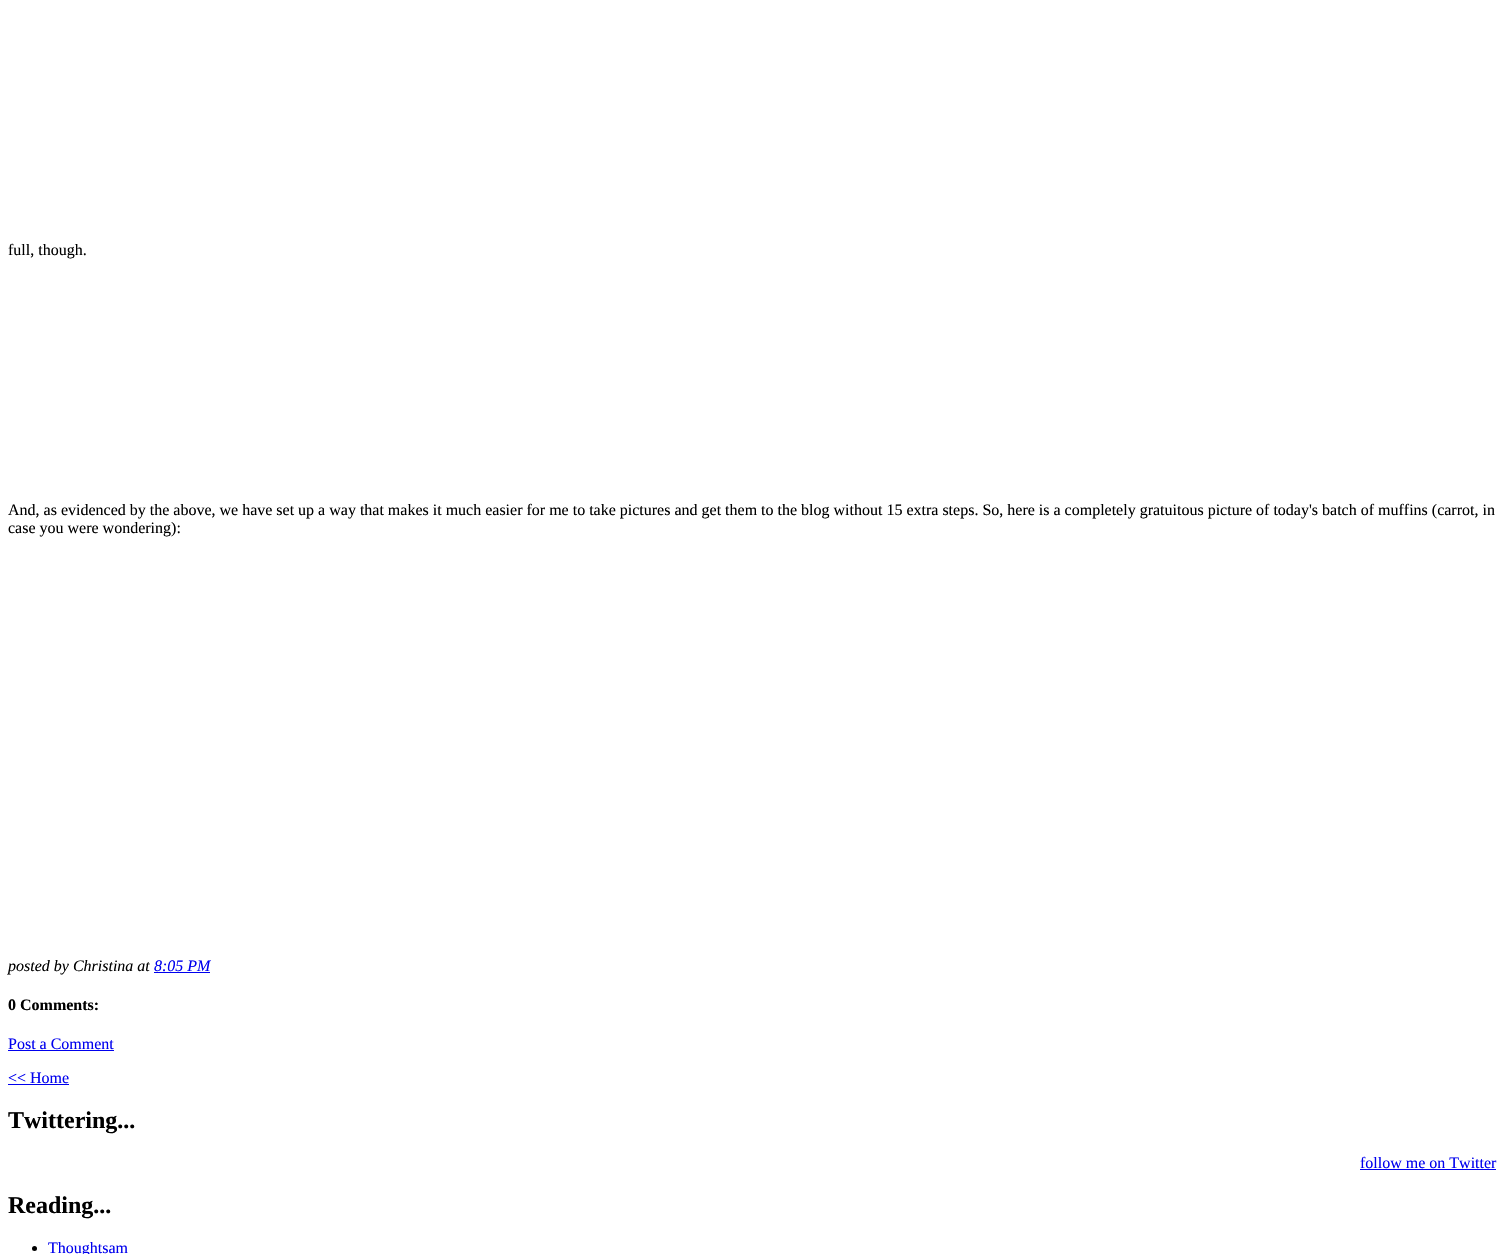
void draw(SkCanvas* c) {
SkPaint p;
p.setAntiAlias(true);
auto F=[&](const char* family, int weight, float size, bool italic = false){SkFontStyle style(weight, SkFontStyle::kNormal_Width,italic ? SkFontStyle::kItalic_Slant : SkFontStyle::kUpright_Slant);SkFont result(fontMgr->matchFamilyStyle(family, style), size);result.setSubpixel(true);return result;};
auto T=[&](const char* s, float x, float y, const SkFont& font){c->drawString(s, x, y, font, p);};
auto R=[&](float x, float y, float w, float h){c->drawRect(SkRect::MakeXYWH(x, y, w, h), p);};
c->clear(0xffffffff);
auto f1 = F("Liberation Serif",400,16);
p.setColor(0xff000000);
T("full, though.",8,255,f1);
T("And, as evidenced by the above, we have set up a way that makes it much easier for me to take pictures and get them to the blog without 15 extra steps. So, here is a completely gratuitous picture of today's batch of muffins (carrot, in",8,515,f1);
T("case you were wondering):",8,533,f1);
auto f2 = F("Liberation Serif",400,16,true);
T("posted by Christina at",8,971,f2);
p.setColor(0xff0000ee);
T("8:05 PM",154,971,f2);
R(154,972,56,1);
auto f3 = F("Liberation Serif",700,16);
p.setColor(0xff000000);
T("0 Comments:",8,1010,f3);
p.setColor(0xff0000ee);
T("Post a Comment",8,1049,f1);
R(8,1050,106,1);
T("<< Home",8,1083,f1);
R(8,1084,61,1);
auto f4 = F("Liberation Serif",700,24);
p.setColor(0xff000000);
T("Twittering...",8,1128,f4);
p.setColor(0xff0000ee);
T("follow me on Twitter",1360,1168,f1);
R(1360,1169,136,1);
p.setColor(0xff000000);
T("Reading...",8,1213,f4);
c->drawCircle(34.5,1248.5,2.5,p);
p.setColor(0xff0000ee);
T("Thoughtsam",48,1253,f1);
}
